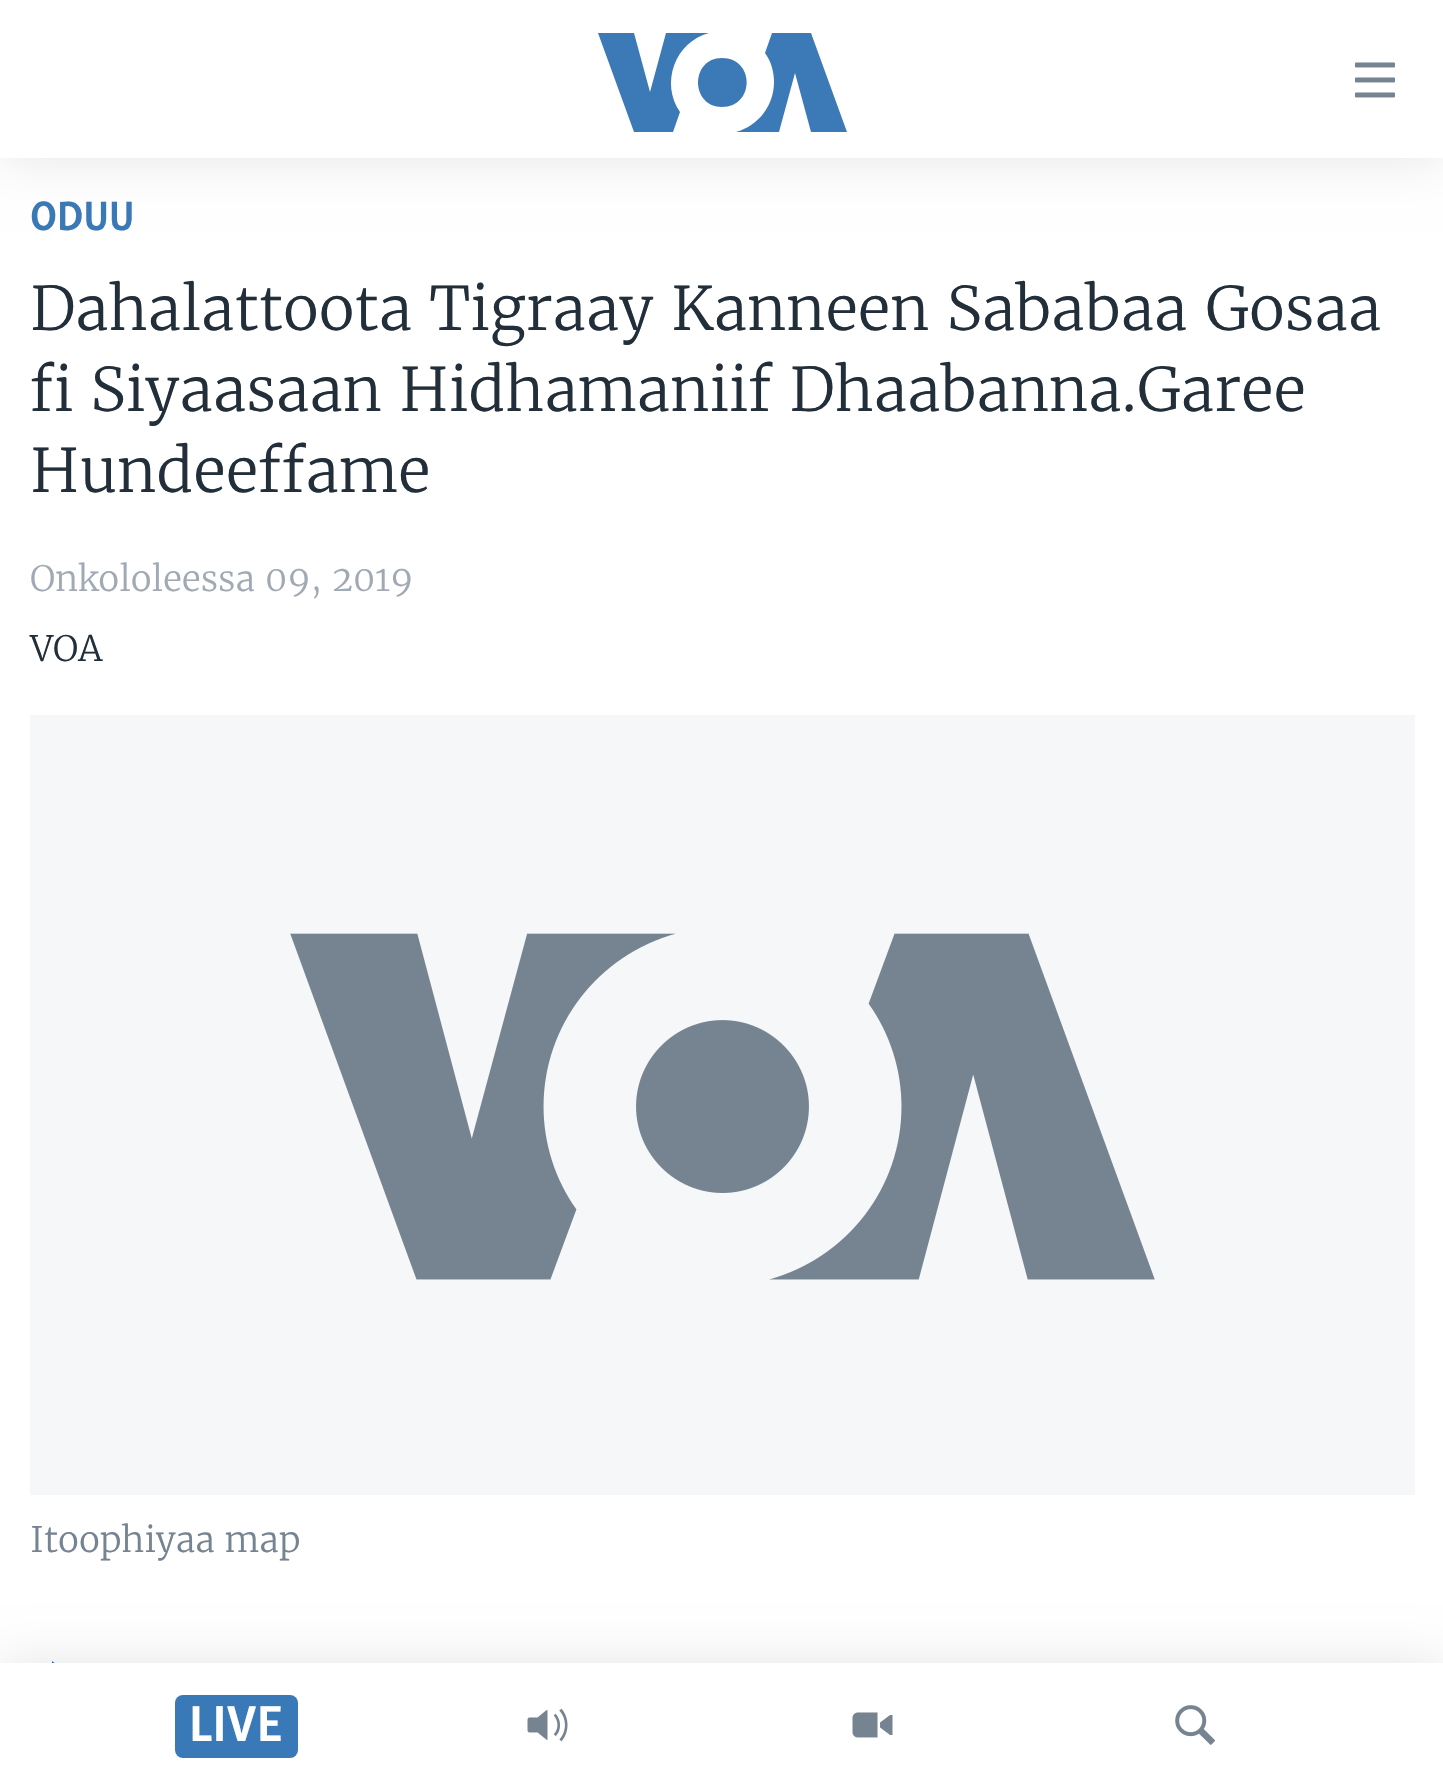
void draw(SkCanvas* c) {
SkPaint p;
p.setAntiAlias(true);
auto F=[&](const char* family, int weight, float size, bool italic = false){SkFontStyle style(weight, SkFontStyle::kNormal_Width,italic ? SkFontStyle::kItalic_Slant : SkFontStyle::kUpright_Slant);SkFont result(fontMgr->matchFamilyStyle(family, style), size);result.setSubpixel(true);return result;};
auto T=[&](const char* s, float x, float y, const SkFont& font){c->drawString(s, x, y, font, p);};
auto R=[&](float x, float y, float w, float h){c->drawRect(SkRect::MakeXYWH(x, y, w, h), p);};
auto Q=[&](float x, float y, float w, float h, float radius){c->drawRoundRect(SkRect::MakeXYWH(x, y, w, h), radius, radius, p);};
auto I=[&](const char* path, float x, float y, float w, float h){auto image = SkImages::DeferredFromEncodedData(SkData::MakeFromFileName(path));c->drawImageRect(image, SkRect::MakeXYWH(x, y, w, h), SkSamplingOptions());};
auto P=[&](const char* data, bool evenOdd = false){SkPath result = *SkParsePath::FromSVGString(data);if (evenOdd) result.setFillType(SkPathFillType::kEvenOdd);return result;};
c->clear(0xffffffff);
auto f1 = F("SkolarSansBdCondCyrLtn",700,42);
p.setColor(0xff3a79b7);
T("ODUU",30,230,f1);
auto f2 = F("Merriweather",300,60);
p.setColor(0xff222f3a);
T("Dahalattoota Tigraay Kanneen Sababaa Gosaa",30,330,f2);
T("fi Siyaasaan Hidhamaniif Dhaabanna.Garee",30,411,f2);
T("Hundeeffame",30,492,f2);
auto f3 = F("Merriweather",300,35);
p.setColor(0xffa1aab4);
T("Onkololeessa 09, 2019",30,591,f3);
p.setColor(0xff222f3a);
T("VOA",30,661,f3);
p.setColor(0xfff6f7f8);
R(30,715,1385,780);
I("1.png",290,933,865,347);
p.setColor(0xff768492);
T("Itoophiyaa map",30,1552,f3);
p.setColor(0xff3a79b7);
c->drawPath(P("M32 1691c1-12 8-20 20-21v-9l20 15l-20 15v-10c-7 0-16 3-20 10z"),p);
p.setColor(0x1a000000);
p.setMaskFilter(SkMaskFilter::MakeBlur(kNormal_SkBlurStyle, 25));
c->drawRect(SkRect::MakeXYWH(0,0,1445,158),p);
p.setMaskFilter(nullptr);
p.setColor(0xffffffff);
R(0,0,1443,158);
p.setColor(0xff3b79b7);
c->drawPath(P("M680 112l-7 20h-39l-36-99h36l16 59l16-59h43c-34 9-49 50-29 79zm42-54c-32 0-32 49 0 49c33 0 33-49 0-49zm52 24c0 24-16 44-38 50h43l16-59l16 59h36l-36-99h-39l-7 20c6 8 9 19 9 29z"),p);
I("2.png",1355,62,40,36);
p.setColor(0x1a000000);
p.setMaskFilter(SkMaskFilter::MakeBlur(kNormal_SkBlurStyle, 25));
c->drawRect(SkRect::MakeXYWH(0,1663,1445,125),p);
p.setMaskFilter(nullptr);
p.setColor(0xffffffff);
R(0,1663,1443,123);
p.setColor(0xff3a79b7);
Q(175,1695,123,63,8);
auto f4 = F("SkolarSansBdCondCyrLtn",700,52);
p.setColor(0xffffffff);
T("LIVE",189,1741,f4);
I("3.png",527,1708,41,34);
I("4.png",852,1712,41,26);
I("5.png",1175,1705,40,40);
}
